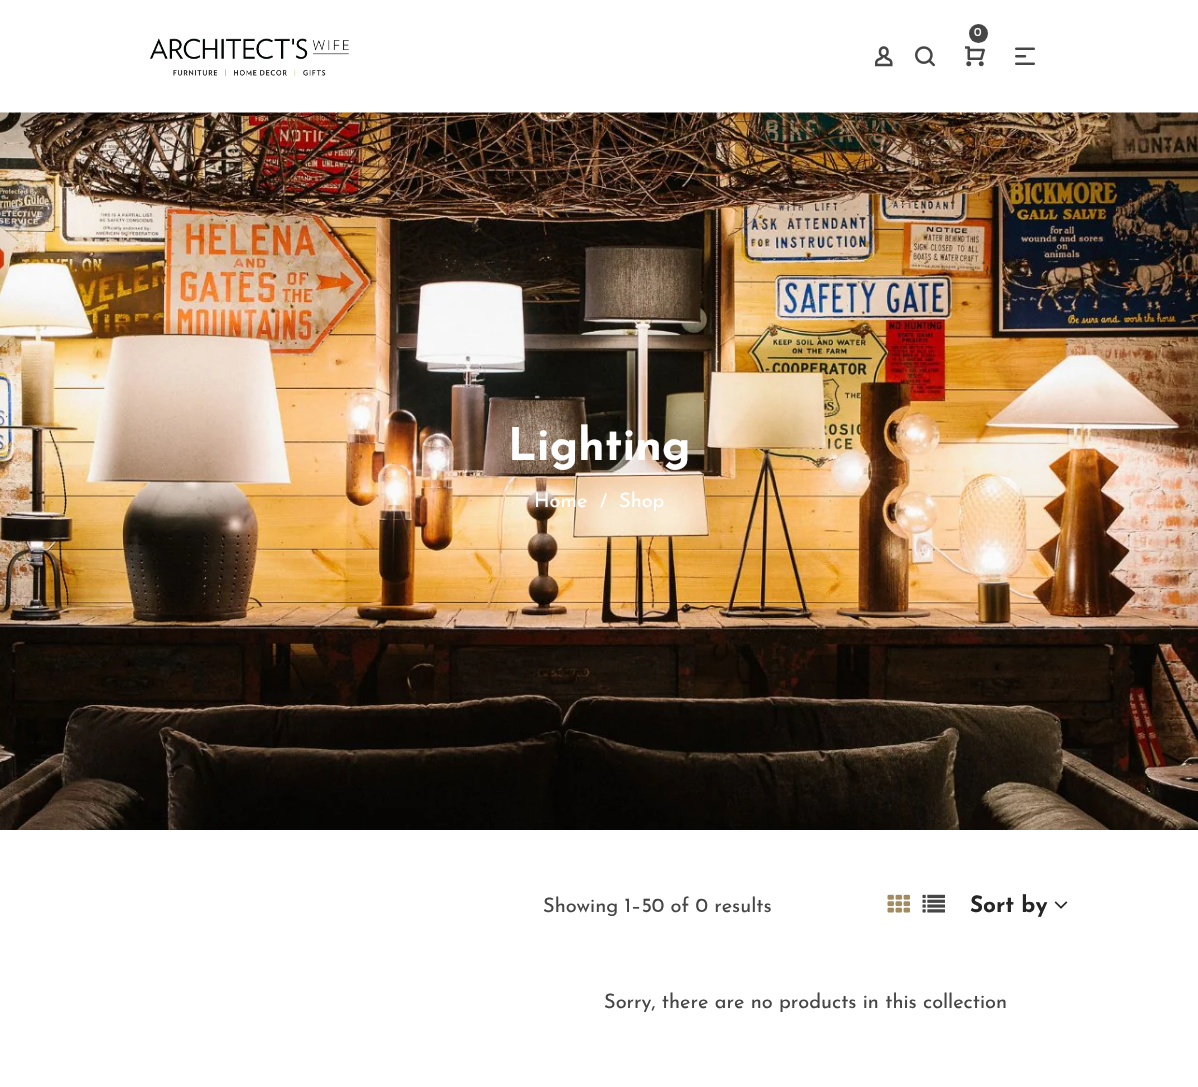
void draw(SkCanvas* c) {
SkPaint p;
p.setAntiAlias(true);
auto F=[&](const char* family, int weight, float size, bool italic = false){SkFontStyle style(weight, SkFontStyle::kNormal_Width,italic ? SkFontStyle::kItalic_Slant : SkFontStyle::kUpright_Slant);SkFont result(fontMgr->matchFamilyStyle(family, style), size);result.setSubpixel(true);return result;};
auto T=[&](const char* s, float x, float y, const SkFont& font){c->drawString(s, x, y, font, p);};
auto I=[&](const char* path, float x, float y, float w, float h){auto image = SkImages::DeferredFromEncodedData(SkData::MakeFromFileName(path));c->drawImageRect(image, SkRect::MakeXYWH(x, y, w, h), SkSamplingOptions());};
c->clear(0xffffffff);
p.setColor(0xff464646);
c->drawCircle(978.5,33.5,9.5,p);
auto f1 = F("Josefin Sans",400,12);
p.setColor(0xffffffff);
T("0",974,36,f1);
I("1.png",965,46,20,21);
I("2.png",875,46,18,21);
I("3.png",915,46,20,21);
I("4.png",1015,47,20,18);
I("5.png",150,38,199,39);
I("6.png",0,112,1198,718);
auto f2 = F("Josefin Sans",700,45);
T("Lighting",508,460,f2);
auto f3 = F("Josefin Sans",400,20);
T("Home",534,507,f3);
auto f4 = F("Josefin Sans",400,18);
T("/",600,507,f4);
T("Shop",619,507,f3);
p.setColor(0xff464646);
T("Showing 1–50 of 0 results",543,912,f3);
I("7.png",887,894,23,19);
I("8.png",922,894,23,19);
auto f5 = F("Josefin Sans",700,22.5);
p.setColor(0xff262626);
T("Sort by",970,912,f5);
I("9.png",1054,901,14,8);
p.setColor(0xff464646);
T("Sorry, there are no products in this collection",604,1008,f3);
}
